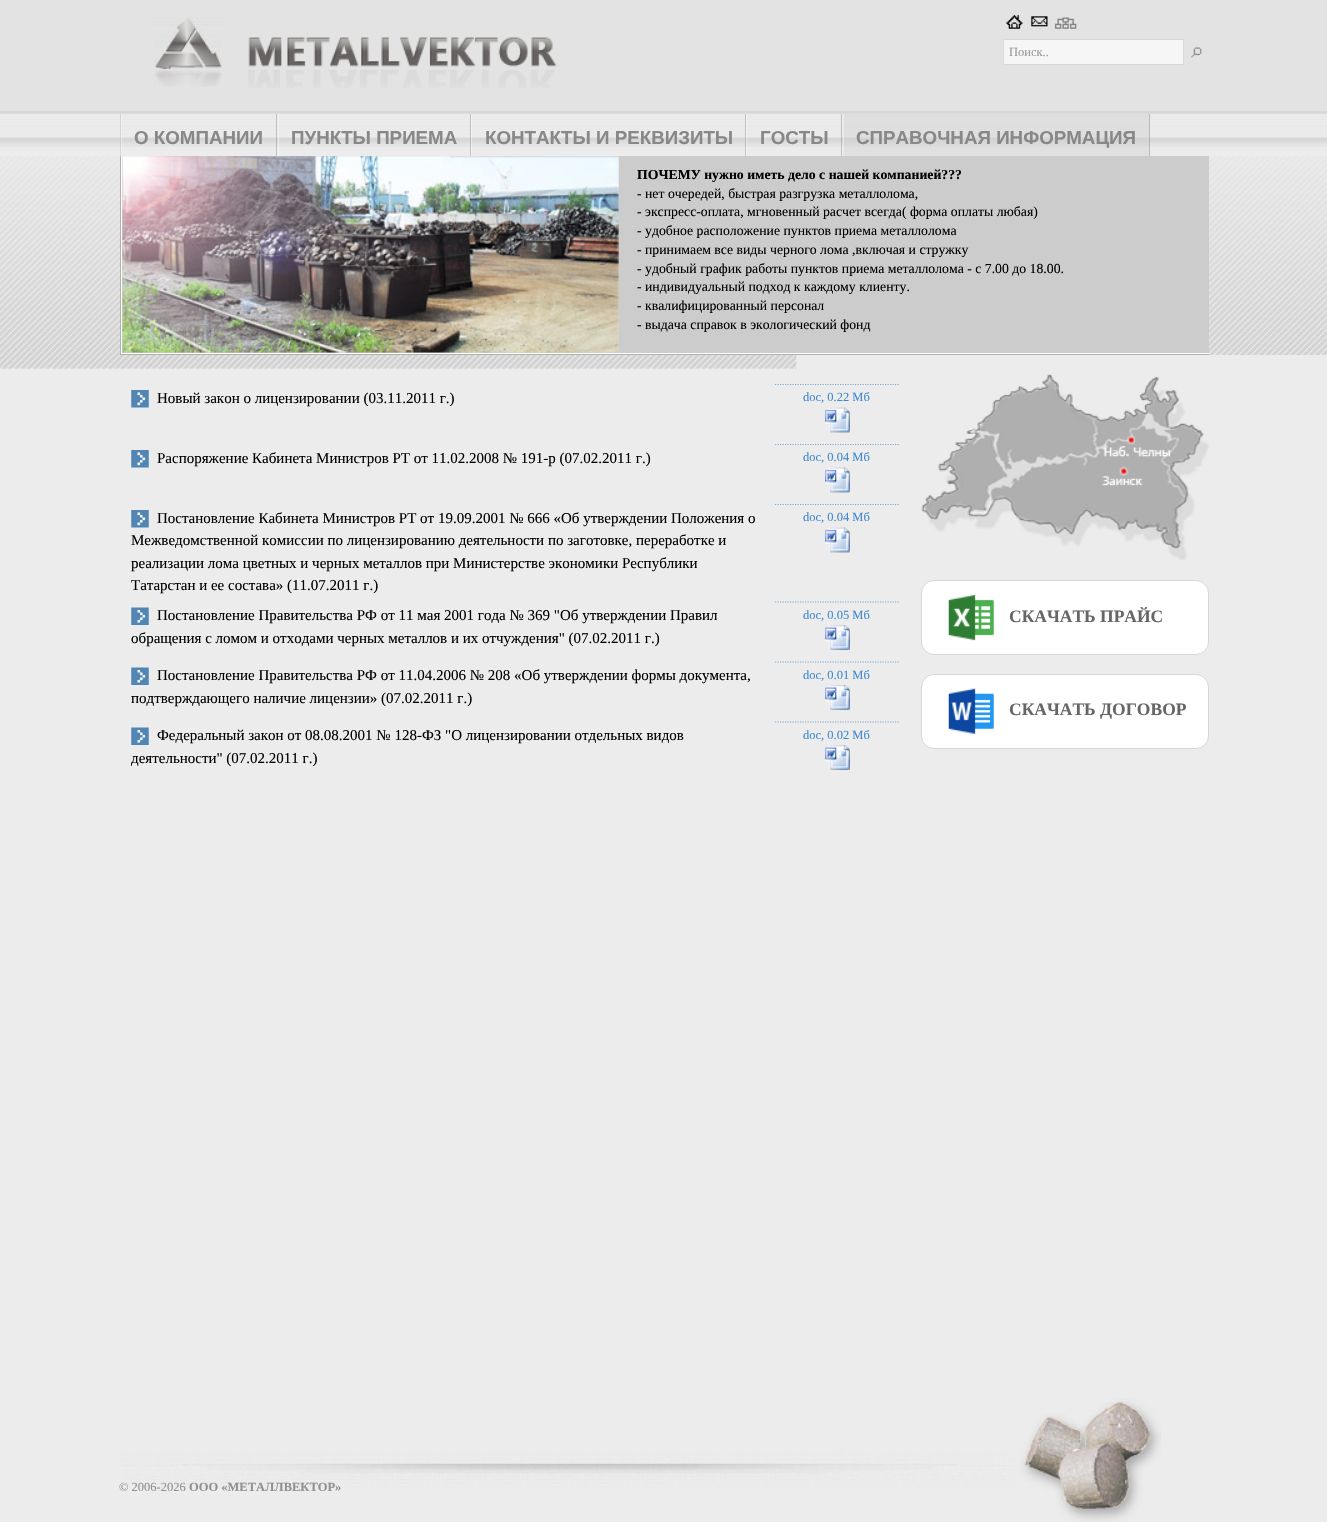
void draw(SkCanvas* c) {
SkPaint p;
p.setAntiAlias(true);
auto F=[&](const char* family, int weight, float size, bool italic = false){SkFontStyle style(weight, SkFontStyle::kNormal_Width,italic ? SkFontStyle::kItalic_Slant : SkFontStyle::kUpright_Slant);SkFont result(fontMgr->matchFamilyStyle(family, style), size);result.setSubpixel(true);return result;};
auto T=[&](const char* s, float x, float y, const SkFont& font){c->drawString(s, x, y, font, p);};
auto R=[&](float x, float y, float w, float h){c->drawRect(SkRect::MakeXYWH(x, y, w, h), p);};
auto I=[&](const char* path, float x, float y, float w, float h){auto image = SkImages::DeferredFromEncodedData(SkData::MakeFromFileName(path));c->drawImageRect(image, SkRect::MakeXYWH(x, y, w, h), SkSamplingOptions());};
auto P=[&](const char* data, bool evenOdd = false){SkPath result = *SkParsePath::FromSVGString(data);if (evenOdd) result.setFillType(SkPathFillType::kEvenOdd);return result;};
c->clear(0xffececec);
p.setColor(0xffe3e3e3);
R(0,0,1327,111);
p.setColor(0xffd7d7d7);
R(0,111,1327,3);
I("1.png",154,17,68,70);
I("2.png",248,37,309,51);
I("3.png",1006,14,17,15);
I("4.png",1031,16,17,11);
I("5.png",1054,17,23,12);
p.setColor(0xfff6f6f6);
c->drawRect(SkRect::MakeXYWH(1003.5,39.5,180,25),p);
p.setStroke(true);
p.setStrokeWidth(1);
p.setColor(0xffdadada);
c->drawRect(SkRect::MakeXYWH(1003.5,39.5,180,25),p);
auto f1 = F("Liberation Serif",400,12.5);
p.setStroke(false);
p.setColor(0xff989898);
T("Поиск..",1009,56,f1);
I("6.png",1191,47,11,11);
I("7.png",0,113,1327,34);
p.setColor(0x66b1b1b1);
R(120,114,1,42);
p.setColor(0x66808080);
R(276,114,1,42);
p.setColor(0x66ffffff);
R(121,114,1,42);
auto f2 = F("Liberation Sans",700,18.75);
p.setColor(0xff888888);
T("О КОМПАНИИ",134,144,f2);
p.setColor(0x66808080);
R(470,114,1,42);
p.setColor(0x66ffffff);
R(278,114,1,42);
p.setColor(0xff888888);
T("ПУНКТЫ ПРИЕМА",291,144,f2);
p.setColor(0x66808080);
R(745,114,1,42);
p.setColor(0x66ffffff);
R(471,114,1,42);
p.setColor(0xff888888);
T("КОНТАКТЫ И РЕКВИЗИТЫ",485,144,f2);
p.setColor(0x66808080);
R(841,114,1,42);
p.setColor(0x66ffffff);
R(746,114,1,42);
p.setColor(0xff888888);
T("ГОСТЫ",760,144,f2);
p.setColor(0x66cecece);
R(843,114,307,42);
p.setColor(0x66808080);
R(1149,114,1,42);
p.setColor(0x66ffffff);
R(843,114,1,42);
p.setColor(0xff888888);
T("СПРАВОЧНАЯ ИНФОРМАЦИЯ",856,144,f2);
I("8.png",0,156,1327,199);
p.setColor(0xffb1b1b1);
R(120,354,1089,1);
R(120,156,1,199);
p.setColor(0xffcccccc);
R(122,156,1087,197);
p.setColor(0xffffffff);
R(121,353,1088,1);
R(121,156,1,198);
I("9.png",122,156,497,197);
auto f3 = F("Liberation Serif",700,13.75);
p.setColor(0xff000000);
T("ПОЧЕМУ нужно иметь дело с нашей компанией?\077?",637,179,f3);
auto f4 = F("Liberation Serif",400,13.75);
T("- нет очередей, быстрая разгрузка металлолома,",637,198,f4);
T("- экспресс-оплата, мгновенный расчет всегда( форма оплаты любая)",637,216,f4);
T("- удобное расположение пунктов приема металлолома",637,235,f4);
T("- принимаем все виды черного лома ,включая и стружку",637,254,f4);
T("- удобный график работы пунктов приема металлолома - с 7.00 до 18.00.",637,273,f4);
T("- индивидуальный подход к каждому клиенту.",637,291,f4);
T("- квалифицированный персонал",637,310,f4);
T("- выдача справок в экологический фонд",637,329,f4);
I("10.png",0,355,797,14);
I("11.png",131,390,18,18);
auto f5 = F("Liberation Serif",400,15);
T("Новый закон о лицензировании (03.11.2011 г.)",157,403,f5);
p.setStroke(true);
p.setStrokeWidth(1.2);
p.setColor(0xff80acd4);
p.setPathEffect(SkDashPathEffect::Make({{1.25f,1.25f}}, 0));
c->drawPath(P("M775 384.5h125"),p);
p.setPathEffect(nullptr);
p.setStroke(false);
p.setColor(0xff3f88d1);
T("doc, 0.22 Мб",803,401,f1);
I("12.png",825,407,25,26);
I("11.png",131,450,18,18);
p.setColor(0xff000000);
T("Распоряжение Кабинета Министров РТ от 11.02.2008 № 191-р (07.02.2011 г.)",157,463,f5);
p.setStroke(true);
p.setColor(0xff80acd4);
p.setPathEffect(SkDashPathEffect::Make({{1.25f,1.25f}}, 0));
c->drawPath(P("M775 444.5h125"),p);
p.setPathEffect(nullptr);
p.setStroke(false);
p.setColor(0xff3f88d1);
T("doc, 0.04 Мб",803,461,f1);
I("12.png",825,467,25,26);
I("11.png",131,510,18,18);
p.setColor(0xff000000);
T("Постановление Кабинета Министров РТ от 19.09.2001 № 666 «Об утверждении Положения о",157,523,f5);
T("Межведомственной комиссии по лицензированию деятельности по заготовке, переработке и",131,545,f5);
T("реализации лома цветных и черных металлов при Министерстве экономики Республики",131,568,f5);
T("Татарстан и ее состава» (11.07.2011 г.)",131,590,f5);
p.setStroke(true);
p.setColor(0xff80acd4);
p.setPathEffect(SkDashPathEffect::Make({{1.25f,1.25f}}, 0));
c->drawPath(P("M775 504.5h125"),p);
p.setPathEffect(nullptr);
p.setStroke(false);
p.setColor(0xff3f88d1);
T("doc, 0.04 Мб",803,521,f1);
I("12.png",825,527,25,26);
I("13.png",131,607,18,18);
p.setColor(0xff000000);
T("Постановление Правительства РФ от 11 мая 2001 года № 369 \"Об утверждении Правил",157,620,f5);
T("обращения с ломом и отходами черных металлов и их отчуждения\" (07.02.2011 г.)",131,643,f5);
p.setStroke(true);
p.setColor(0xff80acd4);
p.setPathEffect(SkDashPathEffect::Make({{1.25f,1.25f}}, 0));
c->drawPath(P("M775 602h125"),p);
p.setPathEffect(nullptr);
p.setStroke(false);
p.setColor(0xff3f88d1);
T("doc, 0.05 Мб",803,619,f1);
I("14.png",825,625,25,25);
I("13.png",131,667,18,18);
p.setColor(0xff000000);
T("Постановление Правительства РФ от 11.04.2006 № 208 «Об утверждении формы документа,",157,680,f5);
T("подтверждающего наличие лицензии» (07.02.2011 г.)",131,703,f5);
p.setStroke(true);
p.setColor(0xff80acd4);
p.setPathEffect(SkDashPathEffect::Make({{1.25f,1.25f}}, 0));
c->drawPath(P("M775 662h125"),p);
p.setPathEffect(nullptr);
p.setStroke(false);
p.setColor(0xff3f88d1);
T("doc, 0.01 Мб",803,679,f1);
I("14.png",825,685,25,25);
I("13.png",131,727,18,18);
p.setColor(0xff000000);
T("Федеральный закон от 08.08.2001 № 128-ФЗ \"О лицензировании отдельных видов",157,740,f5);
T("деятельности\" (07.02.2011 г.)",131,763,f5);
p.setStroke(true);
p.setColor(0xff80acd4);
p.setPathEffect(SkDashPathEffect::Make({{1.25f,1.25f}}, 0));
c->drawPath(P("M775 722h125"),p);
p.setPathEffect(nullptr);
p.setStroke(false);
p.setColor(0xff3f88d1);
T("doc, 0.02 Мб",803,739,f1);
I("14.png",825,745,25,25);
I("15.png",921,373,288,187);
p.setColor(0xffffffff);
c->drawRoundRect(SkRect::MakeXYWH(921.5,580.5,287,74),12.5,12.5,p);
p.setStroke(true);
p.setStrokeWidth(1);
p.setColor(0xffd8d8d8);
c->drawRoundRect(SkRect::MakeXYWH(921.5,580.5,287,74),12.5,12.5,p);
I("16.png",948,594,46,47);
auto f6 = F("Liberation Serif",700,17.5);
p.setStroke(false);
p.setColor(0xff666666);
T("СКАЧАТЬ ПРАЙС",1009,622,f6);
p.setColor(0xffffffff);
c->drawRoundRect(SkRect::MakeXYWH(921.5,674.5,287,74),12.5,12.5,p);
p.setStroke(true);
p.setColor(0xffd8d8d8);
c->drawRoundRect(SkRect::MakeXYWH(921.5,674.5,287,74),12.5,12.5,p);
I("17.png",948,688,46,46);
p.setStroke(false);
p.setColor(0xff666666);
T("СКАЧАТЬ ДОГОВОР",1009,715,f6);
I("18.png",121,1398,1040,124);
p.setColor(0xff909090);
T("© 2006-2026",119,1491,f1);
auto f7 = F("Liberation Serif",700,12.5);
T("ООО «МЕТАЛЛВЕКТОР»",189,1491,f7);
}
